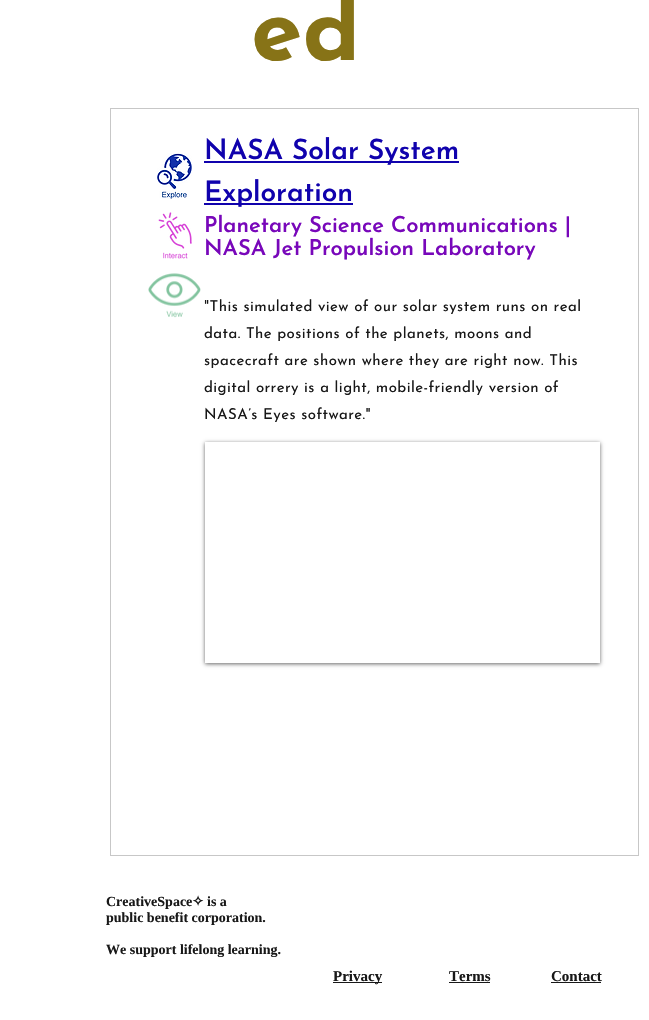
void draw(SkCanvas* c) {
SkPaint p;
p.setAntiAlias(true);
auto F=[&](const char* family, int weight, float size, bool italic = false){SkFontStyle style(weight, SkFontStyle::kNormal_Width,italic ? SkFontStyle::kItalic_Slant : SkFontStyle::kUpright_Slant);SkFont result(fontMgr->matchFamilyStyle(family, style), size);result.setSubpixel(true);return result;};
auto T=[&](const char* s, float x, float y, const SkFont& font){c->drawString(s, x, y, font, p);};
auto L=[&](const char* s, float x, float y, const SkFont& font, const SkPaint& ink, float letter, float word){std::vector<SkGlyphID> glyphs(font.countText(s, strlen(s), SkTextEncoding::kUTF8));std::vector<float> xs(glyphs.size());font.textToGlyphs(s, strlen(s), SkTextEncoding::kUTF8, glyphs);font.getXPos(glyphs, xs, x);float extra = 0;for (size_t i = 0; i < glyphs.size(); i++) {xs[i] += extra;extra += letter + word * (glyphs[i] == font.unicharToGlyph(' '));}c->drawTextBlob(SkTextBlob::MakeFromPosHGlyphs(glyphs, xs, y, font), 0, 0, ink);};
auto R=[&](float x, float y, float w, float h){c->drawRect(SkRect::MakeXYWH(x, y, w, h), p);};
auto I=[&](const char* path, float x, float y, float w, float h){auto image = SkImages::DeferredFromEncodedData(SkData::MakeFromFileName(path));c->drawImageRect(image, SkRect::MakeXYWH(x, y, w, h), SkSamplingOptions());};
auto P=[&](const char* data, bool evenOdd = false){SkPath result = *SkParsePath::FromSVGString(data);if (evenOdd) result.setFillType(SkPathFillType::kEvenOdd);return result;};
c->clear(0xffffffff);
auto f1 = F("Josefin Sans",700,93);
p.setColor(0xff877317);
T("ed",251,60,f1);
p.setStroke(true);
p.setStrokeWidth(1);
p.setColor(0xffc7c7c7);
c->drawRect(SkRect::MakeXYWH(110.5,108.5,528,747),p);
I("1.png",157,153,35,46);
I("2.png",158,212,34,47);
I("3.png",148,273,53,45);
p.setStroke(false);
p.setColor(0xff1002ad);
R(204,161,255,2);
auto f2 = F("Josefin Sans",600,28);
T("NASA Solar System",204,159,f2);
R(204,203,149,2);
T("Exploration",204,201,f2);
auto f3 = F("Josefin Sans",600,22);
p.setColor(0xff7807ba);
T("Planetary Science Communications |",204,232,f3);
T("NASA Jet Propulsion Laboratory",204,255,f3);
auto f4 = F("Josefin Sans",400,15);
p.setColor(0xff181818);
L("\"This simulated view of our solar system runs on real",204,311,f4,p,.45,0);
L("data. The positions of the planets, moons and",204,338,f4,p,.45,0);
L("spacecraft are shown where they are right now. This",204,365,f4,p,.45,0);
L("digital orrery is a light, mobile-friendly version of",204,392,f4,p,.45,0);
L("NASA’s Eyes software.\"",204,419,f4,p,.45,0);
c->save();
c->clipPath(P("M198 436h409v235h-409zm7 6h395v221h-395z",true),true);
p.setColor(0x99000000);
p.setMaskFilter(SkMaskFilter::MakeBlur(kNormal_SkBlurStyle, 2));
c->drawRect(SkRect::MakeXYWH(205,443,395,221),p);
p.setMaskFilter(nullptr);
c->restore();
auto f5 = F("Liberation Serif",700,14);
p.setColor(0xff181818);
T("CreativeSpace",106,906,f5);
auto f6 = F("DejaVu Sans",700,14);
T("✧",192,906,f6);
T("is a",207,906,f5);
T("public benefit corporation.",106,922,f5);
T("We support lifelong learning.",106,954,f5);
R(333,982,49,1);
auto f7 = F("Liberation Serif",700,15);
T("Privacy",333,981,f7);
T("Terms",449,981,f7);
R(449,982,41,1);
T("Contact",551,981,f7);
R(551,982,50,1);
}
